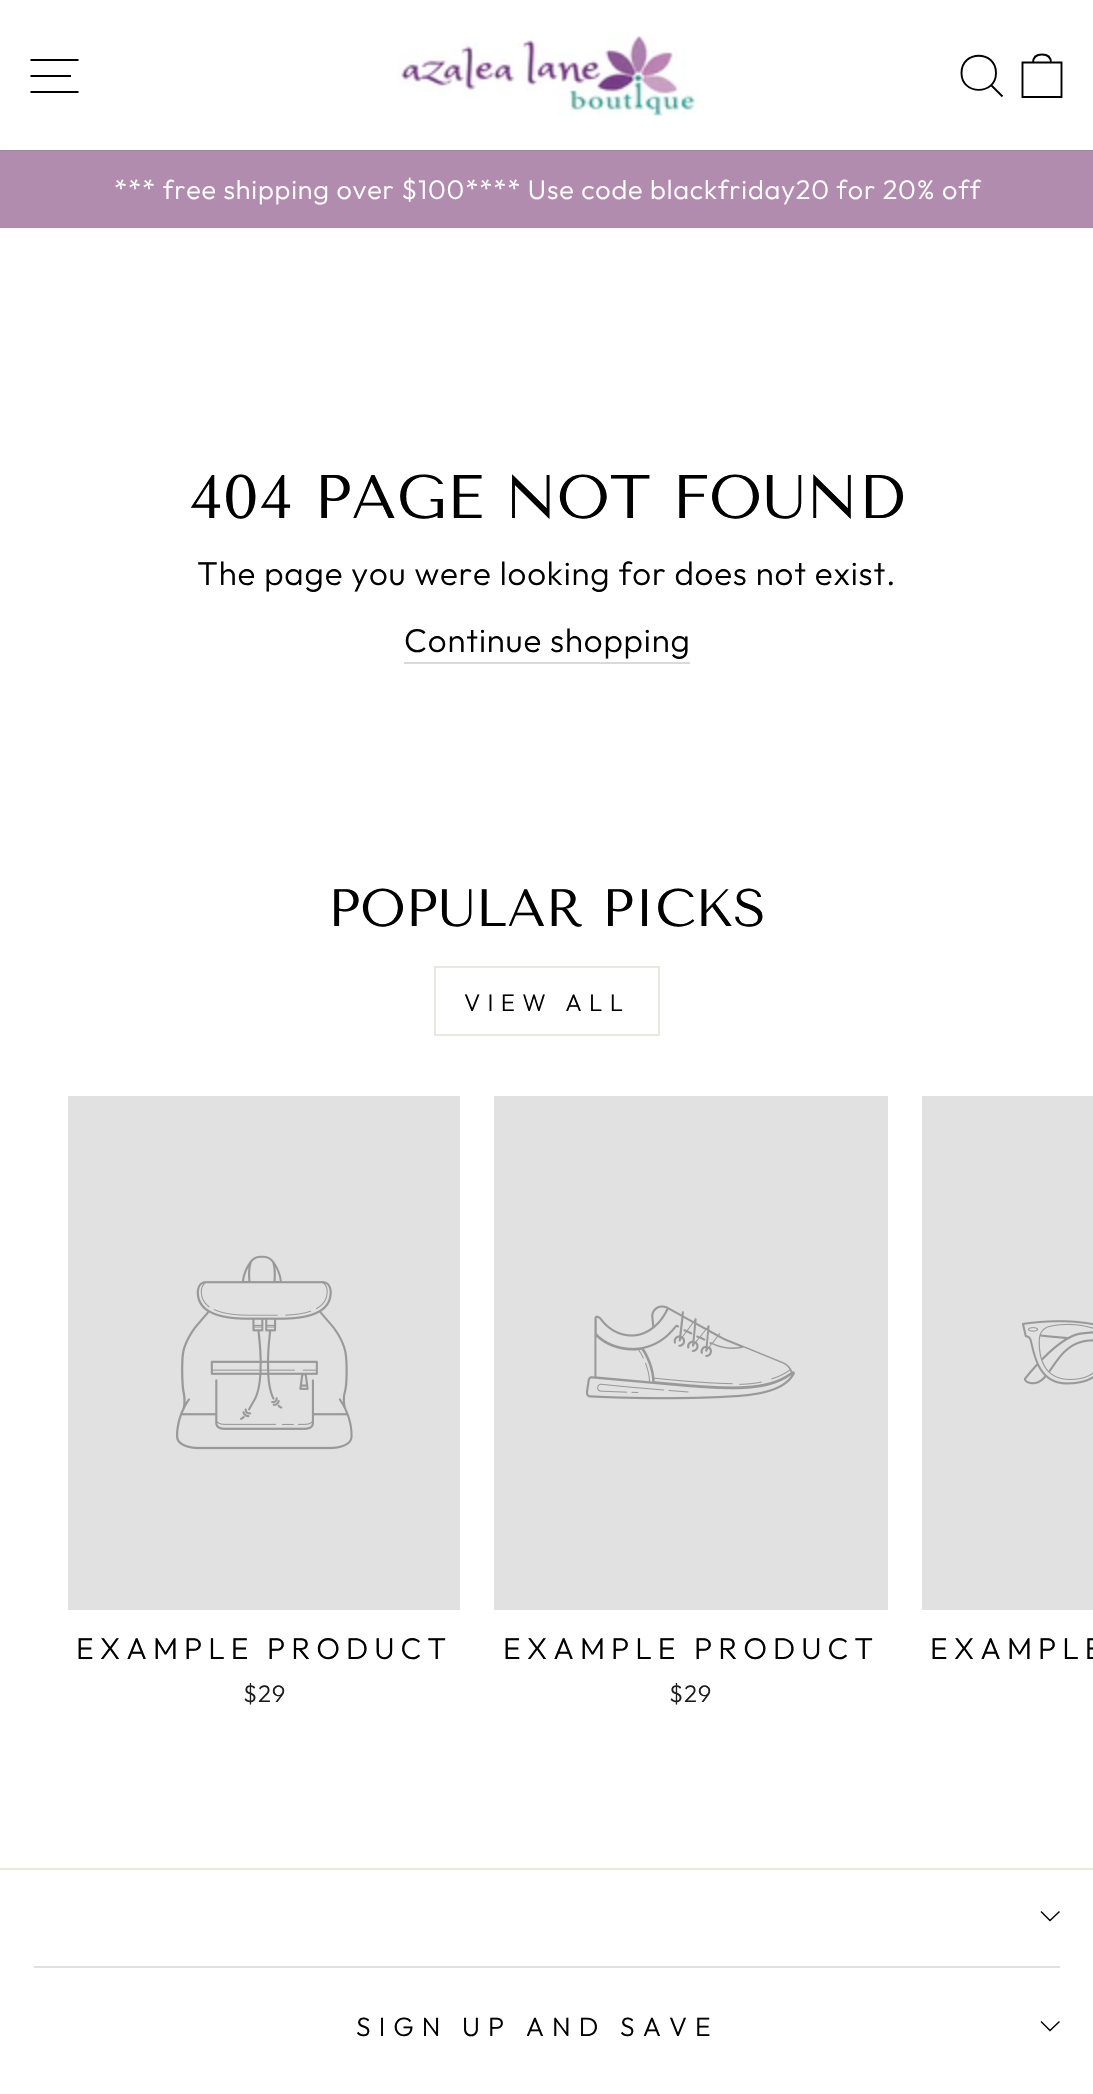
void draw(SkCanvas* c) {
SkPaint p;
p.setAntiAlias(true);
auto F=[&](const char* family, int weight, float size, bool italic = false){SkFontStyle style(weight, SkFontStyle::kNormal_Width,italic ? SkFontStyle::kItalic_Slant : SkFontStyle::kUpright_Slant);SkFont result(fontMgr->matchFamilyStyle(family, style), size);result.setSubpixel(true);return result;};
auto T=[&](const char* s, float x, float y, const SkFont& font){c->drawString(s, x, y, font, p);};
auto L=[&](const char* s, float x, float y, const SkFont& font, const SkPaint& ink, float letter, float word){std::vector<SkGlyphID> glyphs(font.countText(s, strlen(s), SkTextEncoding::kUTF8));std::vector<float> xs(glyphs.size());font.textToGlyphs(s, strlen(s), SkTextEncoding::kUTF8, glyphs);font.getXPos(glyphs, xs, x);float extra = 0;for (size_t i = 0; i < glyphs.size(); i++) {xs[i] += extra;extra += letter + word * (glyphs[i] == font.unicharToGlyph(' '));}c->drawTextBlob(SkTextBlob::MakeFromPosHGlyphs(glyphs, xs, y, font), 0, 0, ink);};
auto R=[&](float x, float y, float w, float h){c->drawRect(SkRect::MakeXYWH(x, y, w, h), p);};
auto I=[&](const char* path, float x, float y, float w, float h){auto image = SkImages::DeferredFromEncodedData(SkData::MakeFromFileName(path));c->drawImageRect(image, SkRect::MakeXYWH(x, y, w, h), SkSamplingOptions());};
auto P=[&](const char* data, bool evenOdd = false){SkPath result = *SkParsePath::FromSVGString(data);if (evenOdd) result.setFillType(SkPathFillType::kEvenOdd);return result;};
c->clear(0xffffffff);
p.setColor(0xffb18cae);
R(0,150,1093,78);
c->save();
c->clipRect(SkRect::MakeXYWH(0,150,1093,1));
p.setColor(0x33000000);
p.setMaskFilter(SkMaskFilter::MakeBlur(kNormal_SkBlurStyle, 1));
c->drawRect(SkRect::MakeXYWH(0,0,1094,150),p);
p.setMaskFilter(nullptr);
c->restore();
p.setStroke(true);
p.setStrokeWidth(1.9);
p.setColor(0xff000000);
c->drawPath(P("M30.5 60h48m-48 16h40.5m-40.5 16h48"),p);
I("1.png",398,35,300,82);
c->drawPath(P("M996 73c0 22.5-34.5 22.5-34.5 0c0-23 34.5-23 34.5 0zm6.5 23.5l-11-11"),p);
c->drawPath(P("M1022.5 62.5h39v34.5h-39zm10.5 .5c0-7 4-8.5 9-8.5c5 0 9 1.5 9 8.5"),p);
auto f1 = F("Outfit",300,27);
p.setStroke(false);
p.setColor(0xffffffff);
L("*** free shipping over $100**** Use code blackfriday20 for 20% off",114,199,f1,p,.83,0);
auto f2 = F("Tenor Sans",400,61.25);
p.setColor(0xff000000);
T("404 PAGE NOT FOUND",189,518,f2);
auto f3 = F("Outfit",300,33.1);
L("The page you were looking for does not exist.",197,585,f3,p,.83,0);
p.setColor(0xffd9d9d9);
R(404,662,286,2);
p.setColor(0xff000000);
L("Continue shopping",404,652,f3,p,.83,0);
auto f4 = F("Tenor Sans",400,52.5);
T("POPULAR PICKS",328,926,f4);
p.setStroke(true);
p.setStrokeWidth(2);
p.setColor(0xffe8e8e1);
c->drawRect(SkRect::MakeXYWH(435,967,224,68),p);
auto f5 = F("Outfit",300,24);
p.setStroke(false);
p.setColor(0xff000000);
L("VIEW ALL",464,1011,f5,p,7.25,0);
p.setColor(0xffe1e1e1);
R(68,1096,392,514);
I("2.png",176,1255,177,195);
auto f6 = F("Outfit",300,30);
p.setColor(0xff000000);
L("EXAMPLE PRODUCT",76,1659,f6,p,6,0);
p.setColor(0xff1c1d1d);
L("$29",243,1702,f5,p,.83,0);
p.setColor(0xffe1e1e1);
R(494,1096,394,514);
I("3.png",585,1305,210,95);
p.setColor(0xff000000);
L("EXAMPLE PRODUCT",503,1659,f6,p,6,0);
p.setColor(0xff1c1d1d);
L("$29",669,1702,f5,p,.83,0);
p.setColor(0xffe1e1e1);
R(922,1096,171,514);
I("4.png",1022,1320,71,65);
p.setColor(0xff000000);
L("EXAMPLE",930,1659,f6,p,6,0);
p.setColor(0xffe8e8e1);
R(0,1868,1093,2);
p.setStroke(true);
p.setStrokeWidth(1.4);
p.setColor(0xff000000);
c->drawPath(P("M1041 1911.5l9 9l9.5-9"),p);
p.setStroke(false);
p.setColor(0xffe0e0e0);
R(34,1966,1026,2);
auto f7 = F("Outfit",300,26.5);
p.setColor(0xff000000);
L("SIGN UP AND SAVE",356,2036,f7,p,8,0);
p.setStroke(true);
c->drawPath(P("M1041 2021.5l9 9l9.5-9"),p);
}
